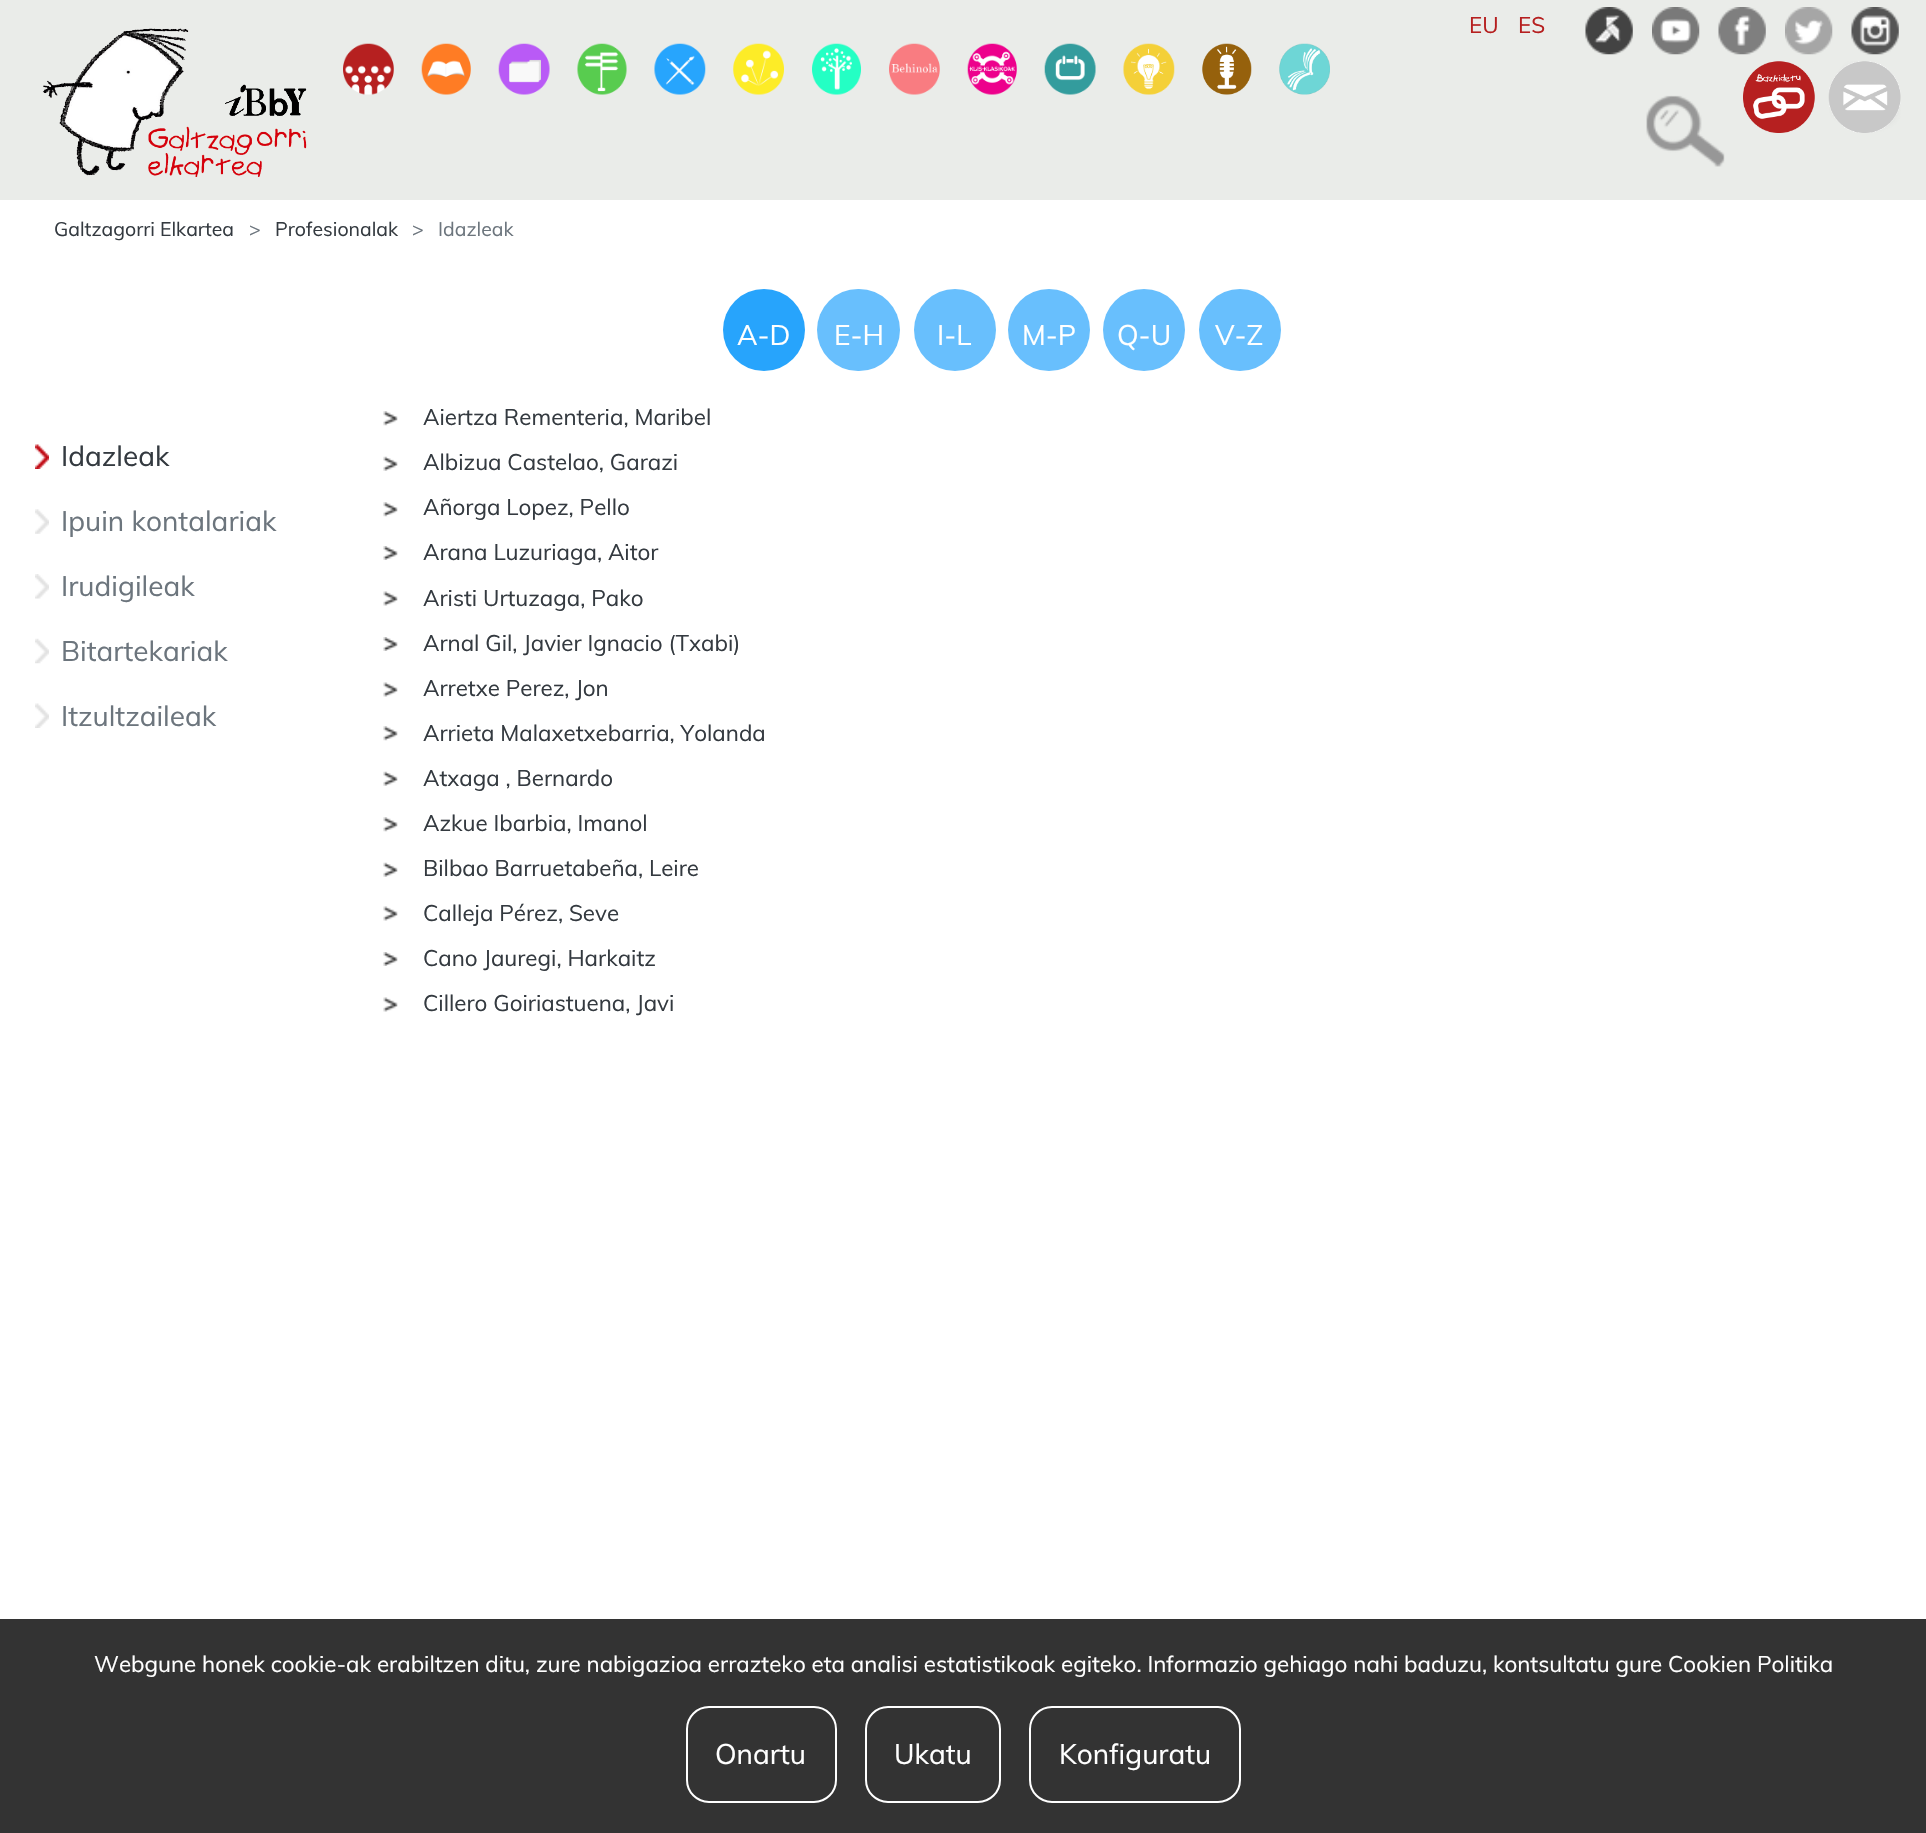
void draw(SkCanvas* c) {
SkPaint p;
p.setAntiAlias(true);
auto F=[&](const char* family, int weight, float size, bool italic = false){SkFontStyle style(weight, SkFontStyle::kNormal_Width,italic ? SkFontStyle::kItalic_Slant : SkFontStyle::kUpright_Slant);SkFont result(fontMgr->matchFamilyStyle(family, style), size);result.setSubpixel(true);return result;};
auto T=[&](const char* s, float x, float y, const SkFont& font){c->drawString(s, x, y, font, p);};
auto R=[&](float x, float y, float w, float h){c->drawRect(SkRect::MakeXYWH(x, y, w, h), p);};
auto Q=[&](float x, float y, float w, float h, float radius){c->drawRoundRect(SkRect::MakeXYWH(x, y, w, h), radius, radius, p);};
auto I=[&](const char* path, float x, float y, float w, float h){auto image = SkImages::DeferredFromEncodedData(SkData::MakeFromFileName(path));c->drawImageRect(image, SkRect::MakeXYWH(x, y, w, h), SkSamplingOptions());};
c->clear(0xffffffff);
p.setColor(0xffeaece9);
R(0,0,1926,200);
auto f1 = F("Muli",400,22.4);
p.setColor(0xffb61f1f);
T("EU",1469,33,f1);
T("ES",1518,33,f1);
I("1.png",1585,7,48,48);
I("2.png",1652,7,48,48);
I("3.png",1718,7,48,48);
I("4.png",1785,7,48,48);
I("5.png",1851,7,48,48);
I("6.png",42,28,265,149);
I("7.png",343,43,51,52);
I("8.png",421,43,50,52);
I("9.png",498,43,52,52);
I("10.png",577,43,50,52);
I("11.png",654,43,52,52);
I("12.png",733,43,51,52);
I("13.png",812,43,49,52);
I("14.png",889,43,51,52);
I("15.png",967,43,50,52);
I("16.png",1044,43,52,52);
I("17.png",1123,43,52,52);
I("18.png",1202,43,50,52);
I("19.png",1279,43,51,52);
I("20.png",1646,95,79,72);
I("21.png",1743,61,72,72);
I("22.png",1828,61,73,72);
auto f2 = F("Muli",400,19.5);
p.setColor(0xff343a40);
T("Galtzagorri Elkartea",54,236,f2);
p.setColor(0xff6c757d);
T(">",249,236,f2);
p.setColor(0xff343a40);
T("Profesionalak",275,236,f2);
p.setColor(0xff6c757d);
T(">",412,236,f2);
T("Idazleak",438,236,f2);
I("23.png",35,444,14,25);
auto f3 = F("Muli",400,28);
p.setColor(0xff343a40);
T("Idazleak",61,466,f3);
I("24.png",35,509,14,25);
p.setColor(0xff6c757d);
T("Ipuin kontalariak",61,531,f3);
I("25.png",35,574,14,25);
T("Irudigileak",61,596,f3);
I("26.png",35,638,14,26);
T("Bitartekariak",61,661,f3);
I("27.png",35,703,14,25);
T("Itzultzaileak",61,726,f3);
p.setColor(0xff27a4fc);
c->drawCircle(764,330,41,p);
p.setColor(0xffffffff);
T("A-D",737,345,f3);
p.setColor(0xff68bffd);
Q(817,289,83,82,41);
p.setColor(0xffffffff);
T("E-H",834,345,f3);
p.setColor(0xff68bffd);
c->drawCircle(955,330,41,p);
p.setColor(0xffffffff);
T("I-L",937,345,f3);
p.setColor(0xff68bffd);
c->drawCircle(1049,330,41,p);
p.setColor(0xffffffff);
T("M-P",1022,345,f3);
p.setColor(0xff68bffd);
c->drawCircle(1144,330,41,p);
p.setColor(0xffffffff);
T("Q-U",1117,345,f3);
p.setColor(0xff68bffd);
c->drawCircle(1240,330,41,p);
p.setColor(0xffffffff);
T("V-Z",1215,345,f3);
I("28.png",383,411,15,15);
p.setColor(0xff343a40);
T("Aiertza Rementeria, Maribel",423,425,f1);
I("29.png",383,456,15,15);
T("Albizua Castelao, Garazi",423,470,f1);
I("28.png",383,502,15,15);
T("Añorga Lopez, Pello",423,515,f1);
I("30.png",383,546,15,14);
T("Arana Luzuriaga, Aitor",423,560,f1);
I("31.png",383,591,15,15);
T("Aristi Urtuzaga, Pako",423,606,f1);
I("30.png",383,637,15,14);
T("Arnal Gil, Javier Ignacio (Txabi)",423,651,f1);
I("31.png",383,682,15,15);
T("Arretxe Perez, Jon",423,696,f1);
I("28.png",383,726,15,15);
T("Arrieta Malaxetxebarria, Yolanda",423,741,f1);
I("29.png",383,771,15,15);
T("Atxaga , Bernardo",423,786,f1);
I("28.png",383,817,15,15);
T("Azkue Ibarbia, Imanol",423,831,f1);
I("29.png",383,862,15,15);
T("Bilbao Barruetabeña, Leire",423,876,f1);
I("31.png",383,906,15,15);
T("Calleja Pérez, Seve",423,921,f1);
I("30.png",383,952,15,14);
T("Cano Jauregi, Harkaitz",423,966,f1);
I("31.png",383,997,15,15);
T("Cillero Goiriastuena, Javi",423,1011,f1);
p.setColor(0xff333333);
R(0,1619,1926,214);
p.setColor(0xffffffff);
T("Webgune honek cookie-ak erabiltzen ditu, zure nabigazioa errazteko eta analisi estatistikoak egiteko. Informazio gehiago nahi baduzu, kontsultatu gure",94,1672,f1);
T("Cookien Politika",1668,1672,f1);
p.setStroke(true);
p.setStrokeWidth(2);
c->drawRoundRect(SkRect::MakeXYWH(687,1707,149,95),22,22,p);
p.setStroke(false);
T("Onartu",715,1764,f3);
p.setStroke(true);
c->drawRoundRect(SkRect::MakeXYWH(866,1707,134,95),22,22,p);
p.setStroke(false);
T("Ukatu",894,1764,f3);
p.setStroke(true);
c->drawRoundRect(SkRect::MakeXYWH(1030,1707,210,95),22,22,p);
p.setStroke(false);
T("Konfiguratu",1059,1764,f3);
}
